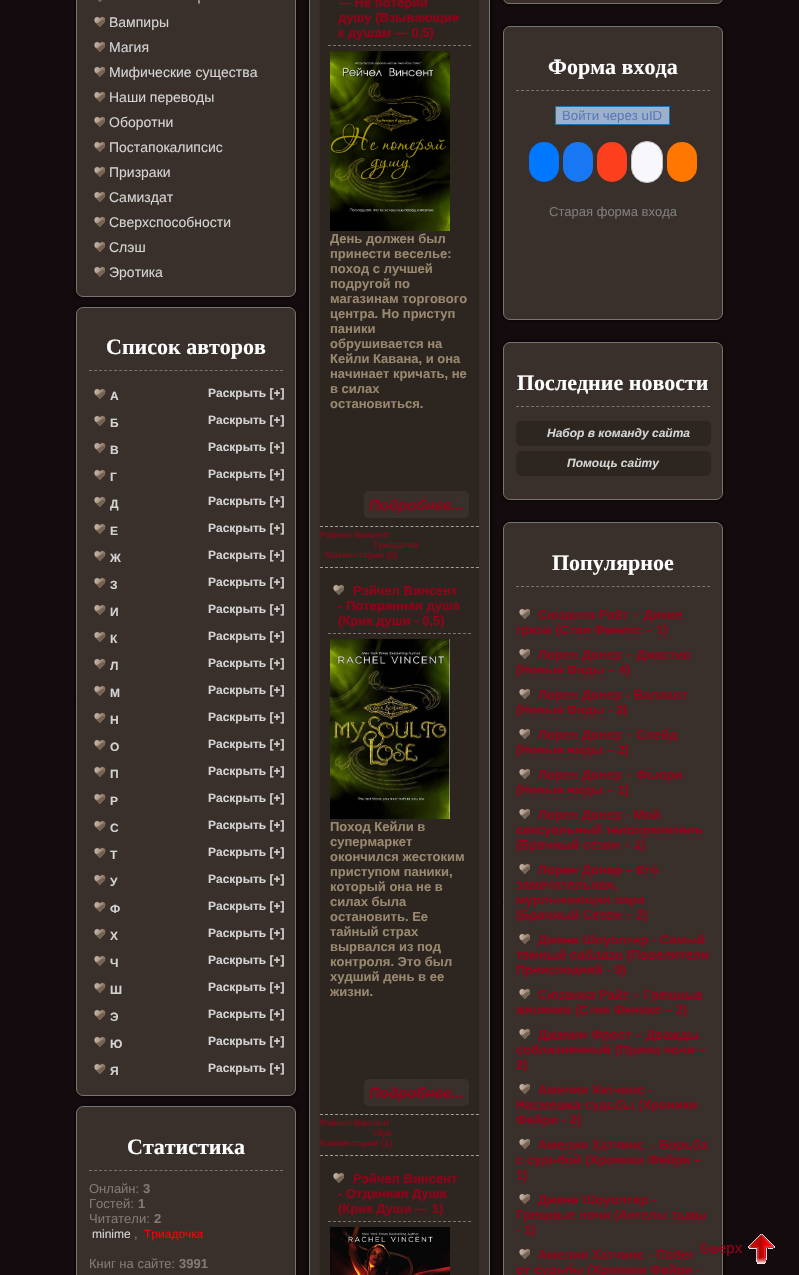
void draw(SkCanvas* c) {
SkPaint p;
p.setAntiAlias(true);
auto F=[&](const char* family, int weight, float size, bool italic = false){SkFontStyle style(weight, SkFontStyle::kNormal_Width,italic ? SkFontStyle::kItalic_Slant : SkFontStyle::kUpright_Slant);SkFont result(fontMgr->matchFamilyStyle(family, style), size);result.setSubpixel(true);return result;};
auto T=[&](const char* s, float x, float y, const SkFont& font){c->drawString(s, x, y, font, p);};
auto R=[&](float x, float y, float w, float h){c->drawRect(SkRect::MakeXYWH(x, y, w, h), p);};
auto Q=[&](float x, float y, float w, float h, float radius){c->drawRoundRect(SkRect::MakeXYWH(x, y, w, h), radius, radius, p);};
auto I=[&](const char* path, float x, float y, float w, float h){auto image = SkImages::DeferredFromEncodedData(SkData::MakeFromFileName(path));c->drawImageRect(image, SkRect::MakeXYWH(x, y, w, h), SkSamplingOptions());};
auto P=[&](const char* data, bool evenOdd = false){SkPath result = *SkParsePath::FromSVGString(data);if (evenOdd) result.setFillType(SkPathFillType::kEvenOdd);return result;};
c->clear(0xff140b0e);
p.setColor(0xff000000);
p.setMaskFilter(SkMaskFilter::MakeBlur(kNormal_SkBlurStyle, 2.5));
c->drawRoundRect(SkRect::MakeXYWH(76,-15,220,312),7,7,p);
p.setMaskFilter(nullptr);
p.setColor(0xff39302b);
c->drawRoundRect(SkRect::MakeXYWH(76.5,-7.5,219,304),6.5,6.5,p);
p.setStroke(true);
p.setStrokeWidth(1);
p.setColor(0xff78736d);
c->drawRoundRect(SkRect::MakeXYWH(76.5,-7.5,219,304),6.5,6.5,p);
I("1.png",98,0,4,2);
auto f1 = F("Liberation Sans",400,14);
p.setStroke(false);
p.setColor(0xffd3d3d3);
T(",",197,2,f1);
I("2.png",94,16,11,11);
T("Вампиры",109,27,f1);
I("2.png",94,41,11,11);
T("Магия",109,52,f1);
I("2.png",94,66,11,11);
T("Мифические существа",109,77,f1);
I("2.png",94,91,11,11);
T("Наши переводы",109,102,f1);
I("2.png",94,116,11,11);
T("Оборотни",109,127,f1);
I("2.png",94,141,11,11);
T("Постапокалипсис",109,152,f1);
I("2.png",94,166,11,11);
T("Призраки",109,177,f1);
I("2.png",94,191,11,11);
T("Самиздат",109,202,f1);
I("2.png",94,216,11,11);
T("Сверхспособности",109,227,f1);
I("2.png",94,241,11,11);
T("Слэш",109,252,f1);
I("2.png",94,266,11,11);
T("Эротика",109,277,f1);
p.setColor(0xff000000);
p.setMaskFilter(SkMaskFilter::MakeBlur(kNormal_SkBlurStyle, 2.5));
c->drawRoundRect(SkRect::MakeXYWH(76,307,220,789),7,7,p);
p.setMaskFilter(nullptr);
p.setColor(0xff39302b);
c->drawRoundRect(SkRect::MakeXYWH(76.5,307.5,219,788),6.5,6.5,p);
p.setStroke(true);
p.setColor(0xff78736d);
c->drawRoundRect(SkRect::MakeXYWH(76.5,307.5,219,788),6.5,6.5,p);
p.setPathEffect(SkDashPathEffect::Make({{3,2.03f}}, 0));
c->drawPath(P("M89 370.5h194"),p);
p.setPathEffect(nullptr);
auto f2 = F("Liberation Serif",700,22);
p.setStroke(false);
p.setColor(0xffffffff);
T("Список авторов",106,354,f2);
I("3.png",94,388,12,12);
auto f3 = F("Liberation Sans",700,12);
p.setColor(0xffd3d3d3);
T("А",110,400,f3);
T("Раскрыть [+]",208,397,f3);
I("3.png",94,415,12,12);
T("Б",110,427,f3);
T("Раскрыть [+]",208,424,f3);
I("3.png",94,442,12,12);
T("В",110,454,f3);
T("Раскрыть [+]",208,451,f3);
I("3.png",94,469,12,12);
T("Г",110,481,f3);
T("Раскрыть [+]",208,478,f3);
I("3.png",94,496,12,12);
T("Д",110,508,f3);
T("Раскрыть [+]",208,505,f3);
I("3.png",94,523,12,12);
T("Е",110,535,f3);
T("Раскрыть [+]",208,532,f3);
I("3.png",94,550,12,12);
T("Ж",110,562,f3);
T("Раскрыть [+]",208,559,f3);
I("3.png",94,577,12,12);
T("З",110,589,f3);
T("Раскрыть [+]",208,586,f3);
I("3.png",94,604,12,12);
T("И",110,616,f3);
T("Раскрыть [+]",208,613,f3);
I("3.png",94,631,12,12);
T("К",110,643,f3);
T("Раскрыть [+]",208,640,f3);
I("3.png",94,658,12,12);
T("Л",110,670,f3);
T("Раскрыть [+]",208,667,f3);
I("3.png",94,685,12,12);
T("М",110,697,f3);
T("Раскрыть [+]",208,694,f3);
I("3.png",94,712,12,12);
T("Н",110,724,f3);
T("Раскрыть [+]",208,721,f3);
I("3.png",94,739,12,12);
T("О",110,751,f3);
T("Раскрыть [+]",208,748,f3);
I("3.png",94,766,12,12);
T("П",110,778,f3);
T("Раскрыть [+]",208,775,f3);
I("3.png",94,793,12,12);
T("Р",110,805,f3);
T("Раскрыть [+]",208,802,f3);
I("3.png",94,820,12,12);
T("С",110,832,f3);
T("Раскрыть [+]",208,829,f3);
I("3.png",94,847,12,12);
T("Т",110,859,f3);
T("Раскрыть [+]",208,856,f3);
I("3.png",94,874,12,12);
T("У",110,886,f3);
T("Раскрыть [+]",208,883,f3);
I("3.png",94,901,12,12);
T("Ф",110,913,f3);
T("Раскрыть [+]",208,910,f3);
I("3.png",94,928,12,12);
T("Х",110,940,f3);
T("Раскрыть [+]",208,937,f3);
I("3.png",94,955,12,12);
T("Ч",110,967,f3);
T("Раскрыть [+]",208,964,f3);
I("3.png",94,982,12,12);
T("Ш",110,994,f3);
T("Раскрыть [+]",208,991,f3);
I("3.png",94,1009,12,12);
T("Э",110,1021,f3);
T("Раскрыть [+]",208,1018,f3);
I("3.png",94,1036,12,12);
T("Ю",110,1048,f3);
T("Раскрыть [+]",208,1045,f3);
I("3.png",94,1063,12,12);
T("Я",110,1075,f3);
T("Раскрыть [+]",208,1072,f3);
p.setColor(0xff000000);
p.setMaskFilter(SkMaskFilter::MakeBlur(kNormal_SkBlurStyle, 2.5));
c->drawRoundRect(SkRect::MakeXYWH(76,1106,220,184),7,7,p);
p.setMaskFilter(nullptr);
p.setColor(0xff39302b);
c->drawRoundRect(SkRect::MakeXYWH(76.5,1106.5,219,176),6.5,6.5,p);
p.setStroke(true);
p.setColor(0xff78736d);
c->drawRoundRect(SkRect::MakeXYWH(76.5,1106.5,219,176),6.5,6.5,p);
p.setPathEffect(SkDashPathEffect::Make({{3,2.03f}}, 0));
c->drawPath(P("M89 1170.5h194"),p);
p.setPathEffect(nullptr);
p.setStroke(false);
p.setColor(0xffffffff);
T("Статистика",127,1154,f2);
auto f4 = F("Liberation Sans",400,13);
p.setColor(0xff807a73);
T("Онлайн:",89,1193,f4);
auto f5 = F("Liberation Sans",700,13);
T("3",143,1193,f5);
T("Гостей:",89,1208,f4);
T("1",138,1208,f5);
T("Читатели:",89,1223,f4);
T("2",154,1223,f5);
auto f6 = F("Liberation Sans",400,12);
p.setColor(0xffd3d3d3);
T("minime",92,1238,f6);
p.setColor(0xff807a73);
T(",",134,1238,f4);
p.setColor(0xffff0000);
T("Триадочка",144,1238,f6);
p.setColor(0xff807a73);
T("Книг на сайте:",89,1268,f4);
T("3991",179,1268,f5);
p.setColor(0xff000000);
p.setMaskFilter(SkMaskFilter::MakeBlur(kNormal_SkBlurStyle, 2.5));
c->drawRoundRect(SkRect::MakeXYWH(309,-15,181,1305),7,7,p);
p.setMaskFilter(nullptr);
p.setColor(0xff39302b);
c->drawRect(SkRect::MakeXYWH(309.5,-.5,180,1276),p);
p.setStroke(true);
p.setColor(0xff78736d);
c->drawRect(SkRect::MakeXYWH(309.5,-.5,180,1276),p);
p.setStroke(false);
p.setColor(0x4d000000);
p.setMaskFilter(SkMaskFilter::MakeBlur(kNormal_SkBlurStyle, 1));
c->drawRoundRect(SkRect::MakeXYWH(320,-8,159,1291),5,5,p);
p.setMaskFilter(nullptr);
p.setColor(0xff2d2620);
R(321,0,157,1275);
p.setStroke(true);
p.setColor(0xff78736d);
p.setPathEffect(SkDashPathEffect::Make({{3,2}}, 0));
c->drawPath(P("M328 45.5h143"),p);
p.setPathEffect(nullptr);
p.setStroke(false);
p.setColor(0xff960018);
T("— Не потеряй",338,7,f5);
T("душу (Взывающие",338,22,f5);
T("к душам — 0,5)",338,37,f5);
I("4.png",330,51,120,180);
p.setColor(0xff99886f);
T("День должен был",330,243,f5);
T("принести веселье:",330,258,f5);
T("поход с лучшей",330,273,f5);
T("подругой по",330,288,f5);
T("магазинам торгового",330,303,f5);
T("центра. Но приступ",330,318,f5);
T("паники",330,333,f5);
T("обрушивается на",330,348,f5);
T("Кейли Кавана, и она",330,363,f5);
T("начинает кричать, не",330,378,f5);
T("в силах",330,393,f5);
T("остановиться.",330,408,f5);
p.setColor(0xff39302b);
Q(364,491,105,27,5);
auto f7 = F("Liberation Sans",700,15,true);
p.setColor(0xff960018);
T("Подробнее...",369,510,f7);
p.setStroke(true);
p.setColor(0xff9e9d9d);
p.setPathEffect(SkDashPathEffect::Make({{3,2.03f}}, 0));
c->drawPath(P("M320 526.5h159"),p);
p.setPathEffect(nullptr);
p.setPathEffect(SkDashPathEffect::Make({{3,2.03f}}, 0));
c->drawPath(P("M320 567.5h159"),p);
p.setPathEffect(nullptr);
auto f8 = F("Liberation Sans",400,9.25);
p.setStroke(false);
p.setColor(0xff960018);
T("Рэйчел Винсент",320,538,f8);
T("Триадочка",373,548,f8);
T("Комментарии (0)",325,558,f8);
p.setStroke(true);
p.setColor(0xff78736d);
p.setPathEffect(SkDashPathEffect::Make({{3,2}}, 0));
c->drawPath(P("M328 633.5h143"),p);
p.setPathEffect(nullptr);
I("5.png",333,584,11,11);
p.setStroke(false);
p.setColor(0xff960018);
T("Рэйчел Винсент",353,595,f5);
T("- Потерянная душа",338,610,f5);
T("(Крик души - 0,5)",338,625,f5);
I("6.png",330,639,120,180);
p.setColor(0xff99886f);
T("Поход Кейли в",330,831,f5);
T("супермаркет",330,846,f5);
T("окончился жестоким",330,861,f5);
T("приступом паники,",330,876,f5);
T("который она не в",330,891,f5);
T("силах была",330,906,f5);
T("остановить. Ее",330,921,f5);
T("тайный страх",330,936,f5);
T("вырвался из под",330,951,f5);
T("контроля. Это был",330,966,f5);
T("худший день в ее",330,981,f5);
T("жизни.",330,996,f5);
p.setColor(0xff39302b);
Q(364,1079,105,27,5);
p.setColor(0xff960018);
T("Подробнее...",369,1098,f7);
p.setStroke(true);
p.setColor(0xff9e9d9d);
p.setPathEffect(SkDashPathEffect::Make({{3,2.03f}}, 0));
c->drawPath(P("M320 1114.5h159"),p);
p.setPathEffect(nullptr);
p.setPathEffect(SkDashPathEffect::Make({{3,2.03f}}, 0));
c->drawPath(P("M320 1155.5h159"),p);
p.setPathEffect(nullptr);
p.setStroke(false);
p.setColor(0xff960018);
T("Рэйчел Винсент",320,1126,f8);
T("Ulya",373,1136,f8);
T("Комментарии (1)",320,1146,f8);
p.setStroke(true);
p.setColor(0xff78736d);
p.setPathEffect(SkDashPathEffect::Make({{3,2}}, 0));
c->drawPath(P("M328 1221.5h143"),p);
p.setPathEffect(nullptr);
I("5.png",333,1172,11,11);
p.setStroke(false);
p.setColor(0xff960018);
T("Рэйчел Винсент",353,1183,f5);
T("- Отданная Душа",338,1198,f5);
T("(Крик Души — 1)",338,1213,f5);
I("7.png",330,1227,120,48);
p.setColor(0xff000000);
p.setMaskFilter(SkMaskFilter::MakeBlur(kNormal_SkBlurStyle, 2.5));
c->drawRoundRect(SkRect::MakeXYWH(503,-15,220,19),7,7,p);
p.setMaskFilter(nullptr);
p.setColor(0xff39302b);
c->drawRoundRect(SkRect::MakeXYWH(503.5,-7.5,219,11),6.5,6.5,p);
p.setStroke(true);
p.setColor(0xff78736d);
c->drawRoundRect(SkRect::MakeXYWH(503.5,-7.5,219,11),6.5,6.5,p);
p.setStroke(false);
p.setColor(0xff000000);
p.setMaskFilter(SkMaskFilter::MakeBlur(kNormal_SkBlurStyle, 2.5));
c->drawRoundRect(SkRect::MakeXYWH(503,26,220,294),7,7,p);
p.setMaskFilter(nullptr);
p.setColor(0xff39302b);
c->drawRoundRect(SkRect::MakeXYWH(503.5,26.5,219,293),6.5,6.5,p);
p.setStroke(true);
p.setColor(0xff78736d);
c->drawRoundRect(SkRect::MakeXYWH(503.5,26.5,219,293),6.5,6.5,p);
p.setPathEffect(SkDashPathEffect::Make({{3,2.03f}}, 0));
c->drawPath(P("M516 90.5h194"),p);
p.setPathEffect(nullptr);
p.setStroke(false);
p.setColor(0xffffffff);
T("Форма входа",548,74,f2);
p.setColor(0xff9db1cc);
c->drawRect(SkRect::MakeXYWH(555.5,106.5,114,18),p);
p.setStroke(true);
p.setColor(0xff1c73a4);
c->drawRect(SkRect::MakeXYWH(555.5,106.5,114,18),p);
auto f9 = F("Liberation Sans",400,13.25);
p.setStroke(false);
p.setColor(0xff5a79b8);
T("Войти через uID",562,120,f9);
p.setColor(0xff0077ff);
Q(529,142,30,40,15);
p.setColor(0xff1877f2);
Q(563,142,30,40,15);
p.setColor(0xfffc3f1d);
Q(597,142,30,40,15);
p.setColor(0xfff8f8fc);
c->drawRoundRect(SkRect::MakeXYWH(631.5,141.5,31,41),15.5,15.5,p);
p.setStroke(true);
p.setColor(0xffc4c4c4);
c->drawRoundRect(SkRect::MakeXYWH(631.5,141.5,31,41),15.5,15.5,p);
p.setStroke(false);
p.setColor(0xffff7700);
Q(667,142,30,40,15);
p.setColor(0xff7d7d7d);
T("Старая форма входа",549,216,f4);
p.setColor(0xff000000);
p.setMaskFilter(SkMaskFilter::MakeBlur(kNormal_SkBlurStyle, 2.5));
c->drawRoundRect(SkRect::MakeXYWH(503,342,220,158),7,7,p);
p.setMaskFilter(nullptr);
p.setColor(0xff39302b);
c->drawRoundRect(SkRect::MakeXYWH(503.5,342.5,219,157),6.5,6.5,p);
p.setStroke(true);
p.setColor(0xff78736d);
c->drawRoundRect(SkRect::MakeXYWH(503.5,342.5,219,157),6.5,6.5,p);
p.setPathEffect(SkDashPathEffect::Make({{3,2.03f}}, 0));
c->drawPath(P("M516 406.5h194"),p);
p.setPathEffect(nullptr);
p.setStroke(false);
p.setColor(0xffffffff);
T("Последние новости",517,390,f2);
p.setColor(0xff2d2620);
Q(516,421,195,25,5);
auto f10 = F("Liberation Sans",700,12,true);
p.setColor(0xffd3d3d3);
T("Набор в команду сайта",547,437,f10);
p.setColor(0xff2d2620);
Q(516,451,195,25,5);
p.setColor(0xffd3d3d3);
T("Помощь сайту",567,467,f10);
p.setColor(0xff000000);
p.setMaskFilter(SkMaskFilter::MakeBlur(kNormal_SkBlurStyle, 2.5));
c->drawRoundRect(SkRect::MakeXYWH(503,522,220,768),7,7,p);
p.setMaskFilter(nullptr);
p.setColor(0xff39302b);
c->drawRoundRect(SkRect::MakeXYWH(503.5,522.5,219,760),6.5,6.5,p);
p.setStroke(true);
p.setColor(0xff78736d);
c->drawRoundRect(SkRect::MakeXYWH(503.5,522.5,219,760),6.5,6.5,p);
p.setPathEffect(SkDashPathEffect::Make({{3,2.03f}}, 0));
c->drawPath(P("M516 586.5h194"),p);
p.setPathEffect(nullptr);
p.setStroke(false);
p.setColor(0xffffffff);
T("Популярное",552,570,f2);
I("2.png",519,608,11,11);
p.setColor(0xff960018);
T("Сюзанна Райт – Дикие",538,619,f5);
T("грехи (Стая Феникс – 1)",516,634,f5);
I("2.png",519,648,11,11);
T("Лорен Донер – Джастис",538,659,f5);
T("(Новые Виды – 4)",516,674,f5);
I("2.png",519,688,11,11);
T("Лорен Донер - Валиант",538,699,f5);
T("(Новые Виды - 3)",516,714,f5);
I("2.png",519,728,11,11);
T("Лорен Донер – Слейд",538,739,f5);
T("(Новые виды – 2)",516,754,f5);
I("2.png",519,768,11,11);
T("Лорен Донер – Фьюри",538,779,f5);
T("(Новые виды – 1)",516,794,f5);
I("2.png",519,808,11,11);
T("Лорен Донер - Мой",538,819,f5);
T("сексуальный телохранитель",516,834,f5);
T("(Брачный сезон – 1)",516,849,f5);
I("2.png",519,863,11,11);
T("Лорен Донер – Его",538,874,f5);
T("замечательная,",516,889,f5);
T("мурлыкающая пара",516,904,f5);
T("(Брачный Сезон – 2)",516,919,f5);
I("2.png",519,933,11,11);
T("Джена Шоуолтер - Самый",538,944,f5);
T("темный соблазн (Повелители",516,959,f5);
T("Преисподней - 9)",516,974,f5);
I("2.png",519,988,11,11);
T("Сюзанна Райт – Грешные",538,999,f5);
T("желания (Стая Феникс – 2)",516,1014,f5);
I("2.png",519,1028,11,11);
T("Джанин Фрост – Дважды",538,1039,f5);
T("соблазненный (Принц ночи –",516,1054,f5);
T("2)",516,1069,f5);
I("2.png",519,1083,11,11);
T("Амелия Хатчинс -",538,1094,f5);
T("Насмешка судьбы (Хроники",516,1109,f5);
T("Фейри - 2)",516,1124,f5);
I("2.png",519,1138,11,11);
T("Амелия Хатчинс – Борьба",538,1149,f5);
T("с судьбой (Хроники Фейри –",516,1164,f5);
T("1)",516,1179,f5);
I("2.png",519,1193,11,11);
T("Джена Шоуолтер -",538,1204,f5);
T("Грешные ночи (Ангелы тьмы",516,1219,f5);
T("- 1)",516,1234,f5);
I("2.png",519,1248,11,11);
T("Амелия Хатчинс - Побег",538,1259,f5);
T("от судьбы (Хроники Фейри -",516,1274,f5);
auto f11 = F("Liberation Sans",400,15);
T("Вверх",700,1253,f11);
I("8.png",748,1234,27,30);
}
